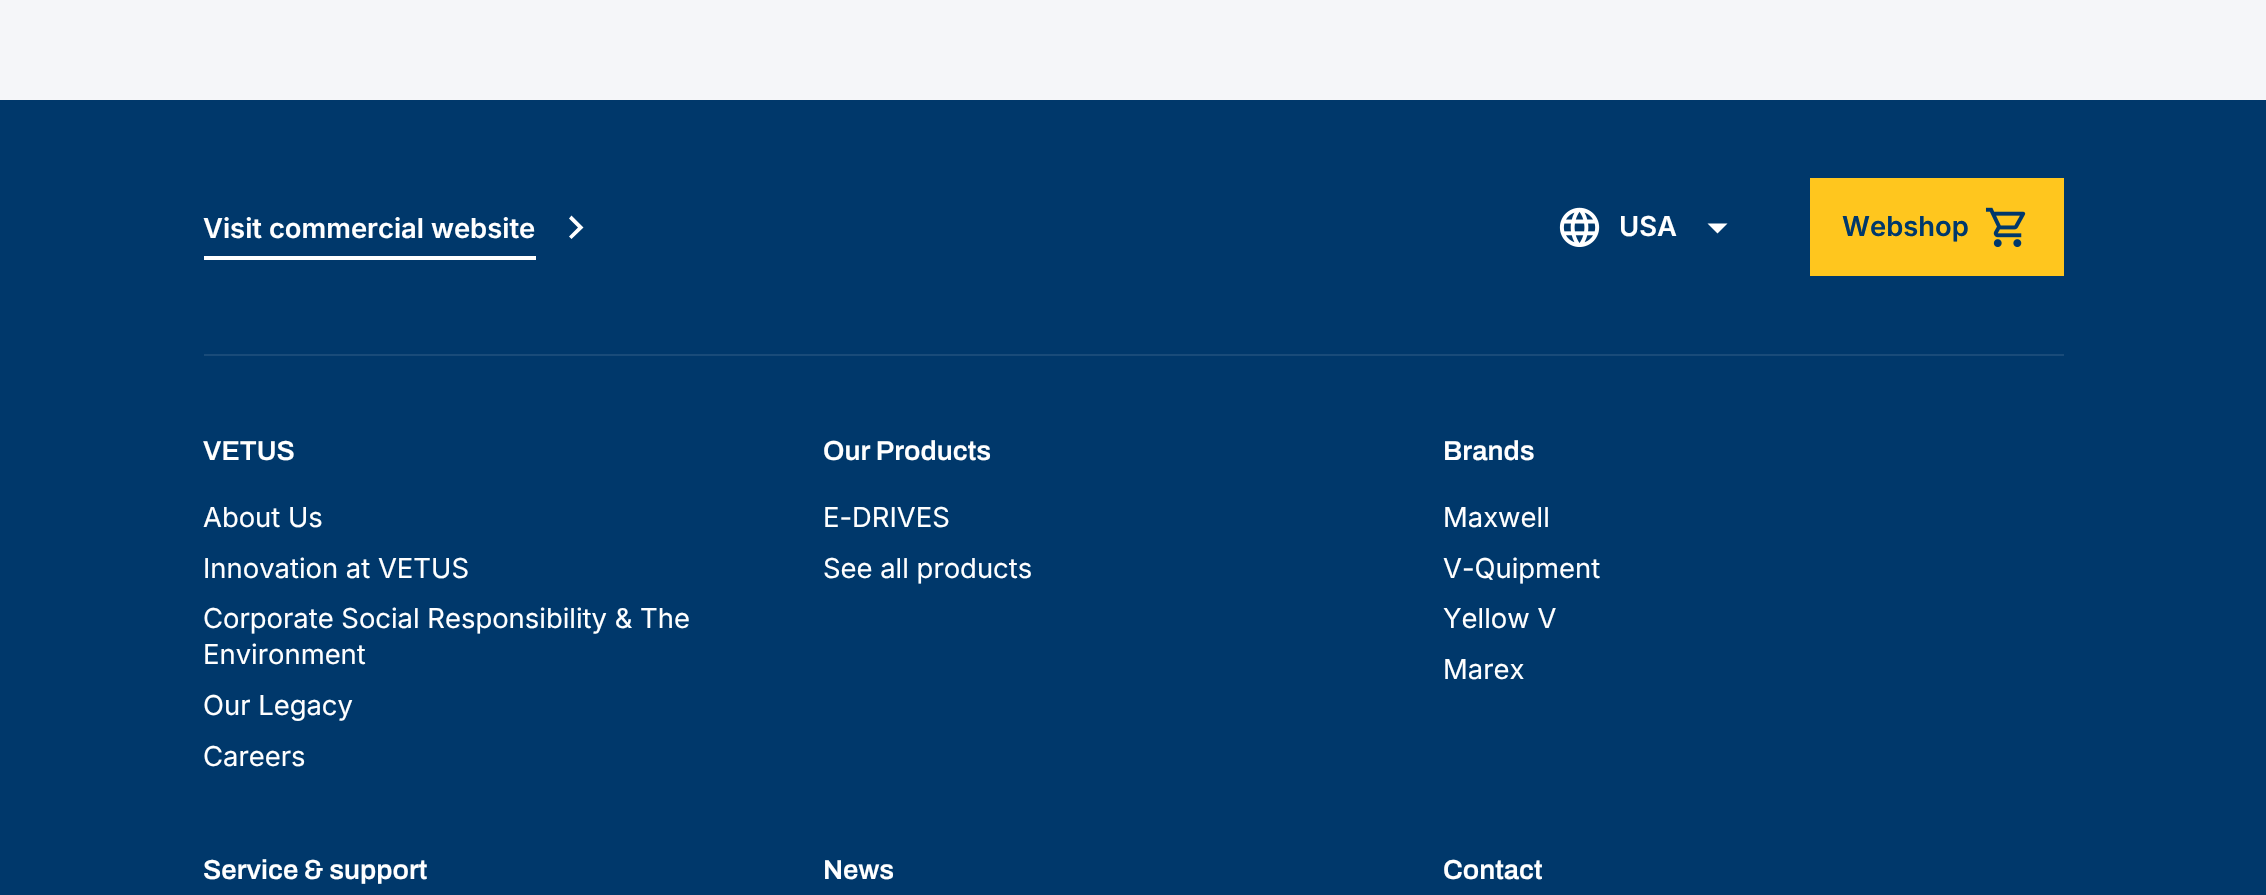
void draw(SkCanvas* c) {
SkPaint p;
p.setAntiAlias(true);
auto F=[&](const char* family, int weight, float size, bool italic = false){SkFontStyle style(weight, SkFontStyle::kNormal_Width,italic ? SkFontStyle::kItalic_Slant : SkFontStyle::kUpright_Slant);SkFont result(fontMgr->matchFamilyStyle(family, style), size);result.setSubpixel(true);return result;};
auto T=[&](const char* s, float x, float y, const SkFont& font){c->drawString(s, x, y, font, p);};
auto R=[&](float x, float y, float w, float h){c->drawRect(SkRect::MakeXYWH(x, y, w, h), p);};
auto I=[&](const char* path, float x, float y, float w, float h){auto image = SkImages::DeferredFromEncodedData(SkData::MakeFromFileName(path));c->drawImageRect(image, SkRect::MakeXYWH(x, y, w, h), SkSamplingOptions());};
auto P=[&](const char* data, bool evenOdd = false){SkPath result = *SkParsePath::FromSVGString(data);if (evenOdd) result.setFillType(SkPathFillType::kEvenOdd);return result;};
c->clear(0xff00386b);
p.setColor(0xfff5f6f9);
R(0,0,2266,100);
auto f1 = F("Inter",600,27.4);
p.setColor(0xffffffff);
T("Visit commercial website",203,238,f1);
R(204,256,332,4);
c->drawPath(P("M569 236.5l9-9l-9-9l2.5-3l12 12l-12 11.5z"),p);
I("1.png",1559,207,41,40);
T("USA",1619,236,f1);
c->drawPath(P("M1707.5 223.5l10 10l10-10z"),p);
p.setColor(0xffffc61e);
R(1810,178,254,98);
p.setColor(0xff00386b);
T("Webshop",1842,236,f1);
I("2.png",1985,207,41,40);
p.setColor(0xff194b79);
R(204,354,1860,2);
auto f2 = F("Archivo",600,27.4);
p.setColor(0xffffffff);
T("VETUS",203,460,f2);
auto f3 = F("Inter",400,27.4);
T("About Us",203,527,f3);
T("Innovation at VETUS",203,578,f3);
T("Corporate Social Responsibility & The",203,628,f3);
T("Environment",203,664,f3);
T("Our Legacy",203,715,f3);
T("Careers",203,766,f3);
T("Our Products",823,460,f2);
T("E-DRIVES",823,527,f3);
T("See all products",823,578,f3);
T("Brands",1443,460,f2);
T("Maxwell",1443,527,f3);
T("V-Quipment",1443,578,f3);
T("Yellow V",1443,628,f3);
T("Marex",1443,679,f3);
T("Service & support",203,879,f2);
T("News",823,879,f2);
T("Contact",1443,879,f2);
}
